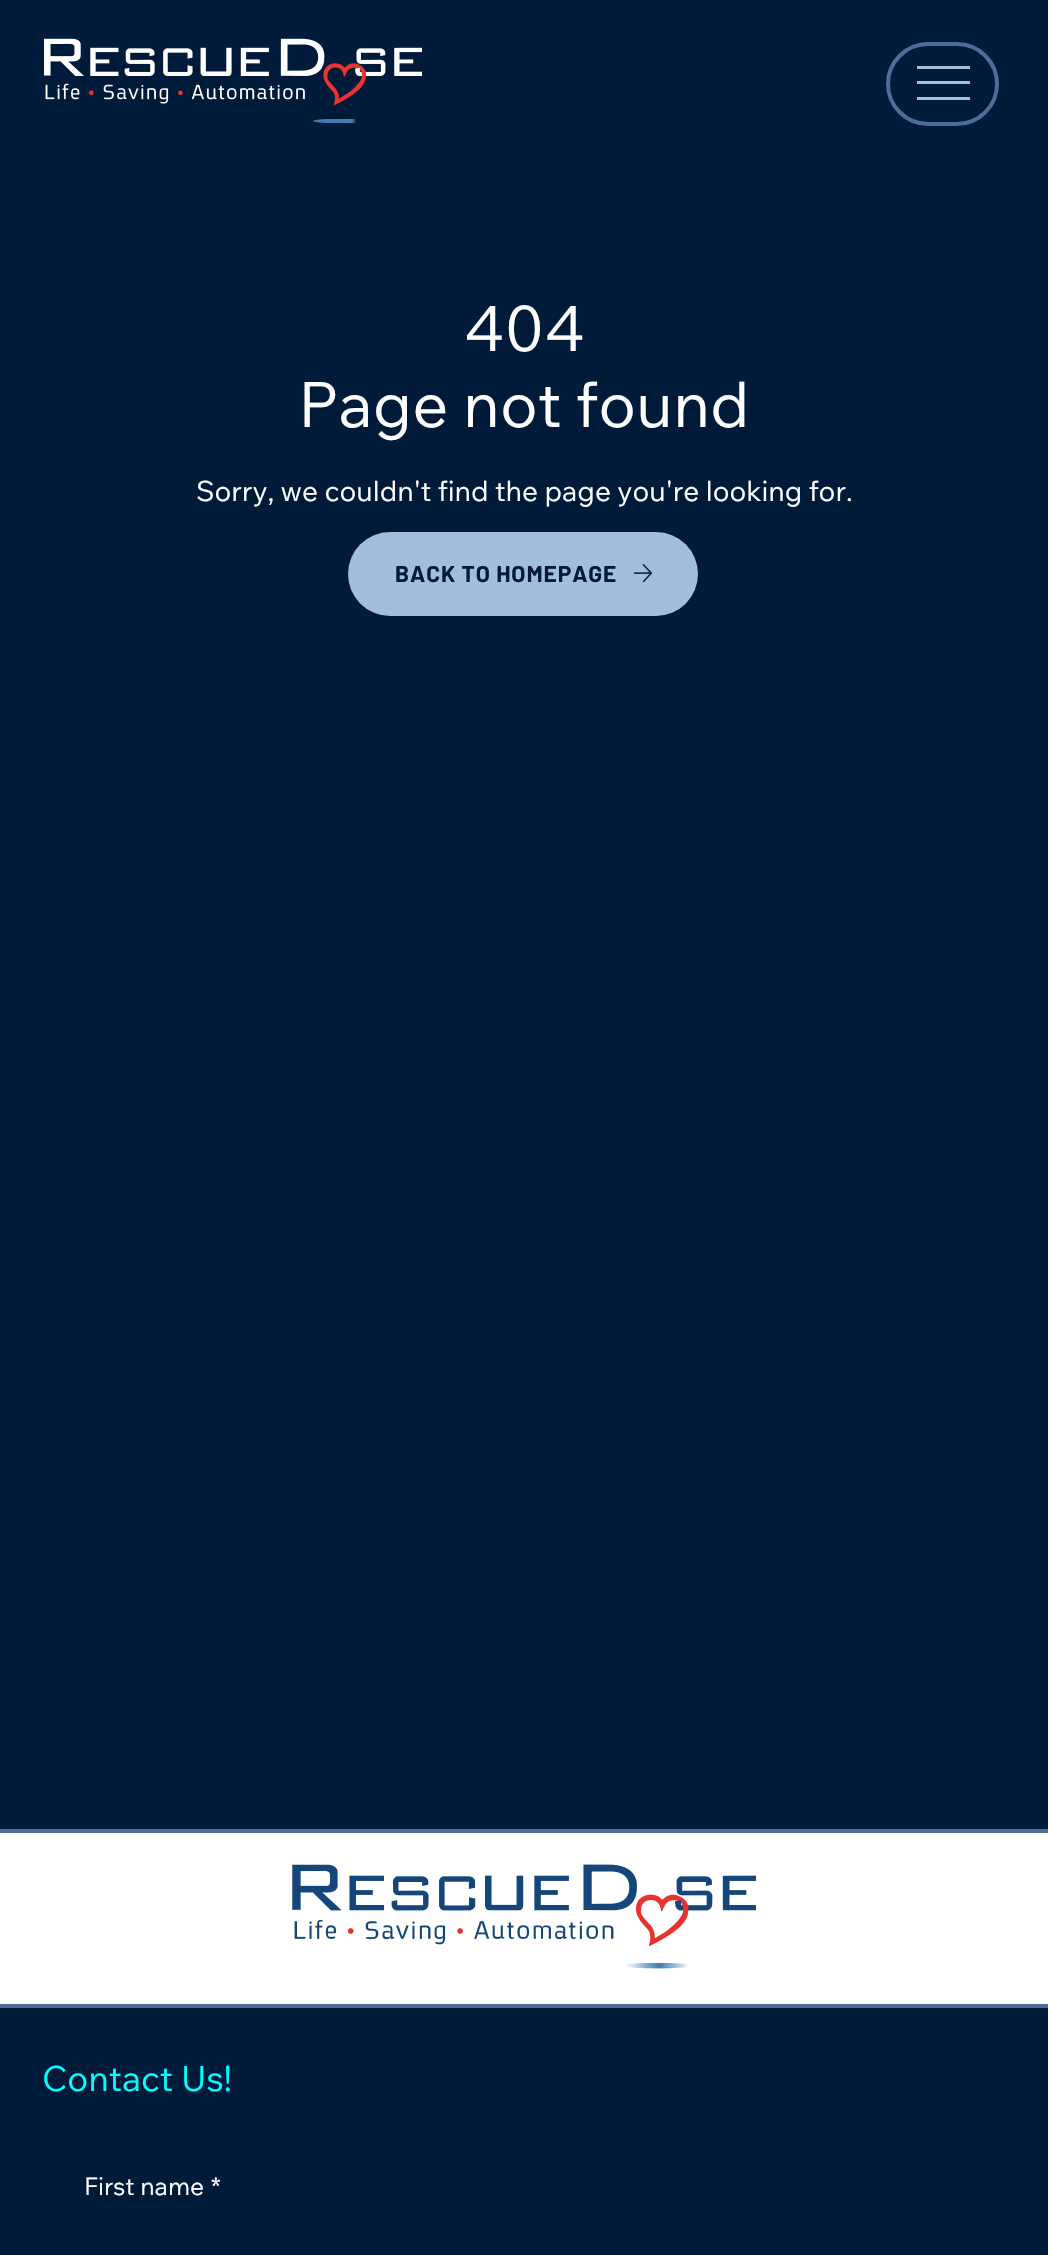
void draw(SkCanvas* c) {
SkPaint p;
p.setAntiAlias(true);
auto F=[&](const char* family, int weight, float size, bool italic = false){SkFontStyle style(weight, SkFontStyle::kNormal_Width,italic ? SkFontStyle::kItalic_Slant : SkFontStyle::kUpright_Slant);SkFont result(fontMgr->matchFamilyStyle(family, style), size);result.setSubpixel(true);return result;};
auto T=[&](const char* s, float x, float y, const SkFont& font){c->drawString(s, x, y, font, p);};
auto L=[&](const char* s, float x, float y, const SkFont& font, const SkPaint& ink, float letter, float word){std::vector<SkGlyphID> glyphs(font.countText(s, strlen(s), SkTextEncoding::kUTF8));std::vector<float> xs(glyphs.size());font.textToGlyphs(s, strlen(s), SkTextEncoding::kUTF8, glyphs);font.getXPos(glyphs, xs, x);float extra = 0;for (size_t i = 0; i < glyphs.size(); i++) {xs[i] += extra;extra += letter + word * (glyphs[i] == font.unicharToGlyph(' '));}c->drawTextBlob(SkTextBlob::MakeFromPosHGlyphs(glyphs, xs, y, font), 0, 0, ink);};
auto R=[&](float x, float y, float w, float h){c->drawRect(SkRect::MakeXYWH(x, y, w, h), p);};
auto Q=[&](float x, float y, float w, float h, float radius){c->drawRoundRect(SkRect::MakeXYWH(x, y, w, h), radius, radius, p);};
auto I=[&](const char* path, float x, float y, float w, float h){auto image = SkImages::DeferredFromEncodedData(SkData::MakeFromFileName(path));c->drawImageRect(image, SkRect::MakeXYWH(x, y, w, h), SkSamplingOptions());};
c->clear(0xff001a3a);
I("1.png",44,38,378,85);
p.setStroke(true);
p.setStrokeWidth(4);
p.setColor(0xff4b6d97);
c->drawRoundRect(SkRect::MakeXYWH(888,44,109,80),40,40,p);
p.setStroke(false);
p.setColor(0xffa5bddc);
R(917,66,53,3);
R(917,81,53,3);
R(917,97,53,3);
auto f1 = F("Wix Madefor Text",400,63);
p.setColor(0xffffffff);
T("404",464,351,f1);
T("Page not found",298,427,f1);
auto f2 = F("Wix Madefor Text",400,28);
T("Sorry, we couldn't find the page you're looking for.",196,501,f2);
p.setColor(0xffa5bddc);
Q(348,532,350,84,42);
auto f3 = F("Barlow",700,22.75);
p.setColor(0xff001a3a);
L("BACK TO HOMEPAGE",395,582,f3,p,.9,0);
I("2.png",633,564,20,19);
p.setColor(0xff4b6d97);
R(0,1829,1048,4);
p.setColor(0xffffffff);
R(0,1833,1048,171);
I("3.png",292,1864,464,105);
p.setColor(0xff4b6d97);
R(0,2004,1048,4);
auto f4 = F("Wix Madefor Text",400,35);
p.setColor(0xff02ffff);
T("Contact Us!",42,2091,f4);
auto f5 = F("Wix Madefor Text",400,24.5);
p.setColor(0xffffffff);
T("First name",84,2195,f5);
T("*",211,2195,f5);
}
